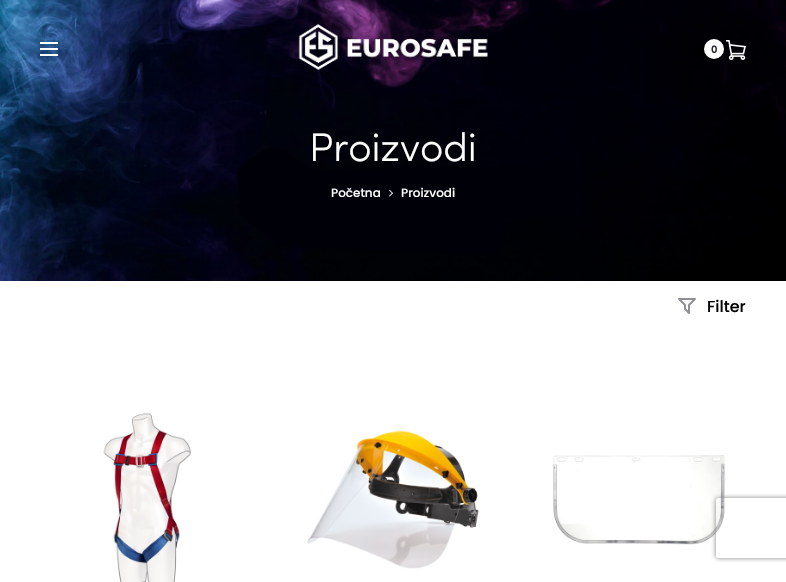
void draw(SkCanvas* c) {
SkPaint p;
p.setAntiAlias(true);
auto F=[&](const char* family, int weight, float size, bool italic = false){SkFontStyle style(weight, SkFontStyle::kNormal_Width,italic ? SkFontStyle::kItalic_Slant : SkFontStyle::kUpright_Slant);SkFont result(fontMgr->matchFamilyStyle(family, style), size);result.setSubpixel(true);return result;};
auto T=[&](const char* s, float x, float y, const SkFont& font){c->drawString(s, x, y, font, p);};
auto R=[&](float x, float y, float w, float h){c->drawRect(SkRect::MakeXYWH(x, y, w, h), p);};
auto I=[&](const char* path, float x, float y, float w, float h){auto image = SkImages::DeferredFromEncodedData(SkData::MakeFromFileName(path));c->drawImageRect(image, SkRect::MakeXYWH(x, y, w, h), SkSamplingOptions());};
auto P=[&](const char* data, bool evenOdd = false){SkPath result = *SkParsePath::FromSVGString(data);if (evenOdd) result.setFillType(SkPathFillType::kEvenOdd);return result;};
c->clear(0xffffffff);
I("3.png",0,0,786,281);
p.setColor(0xffffffff);
R(40,48,18,2);
R(40,42,18,2);
R(40,54,18,2);
I("1.png",298,24,190,46);
c->drawCircle(714,49,10,p);
auto f1 = F("Poppins",600,10);
p.setColor(0xff23232c);
T("0",711,53,f1);
I("2.png",726,40,20,20);
auto f2 = F("Sofia",300,40);
p.setColor(0xffffffff);
T("Proizvodi",309,161,f2);
auto f3 = F("Poppins",500,12);
T("Početna",331,197,f3);
I("4.png",389,189,4,8);
T("Proizvodi",401,197,f3);
p.setStroke(true);
p.setStrokeWidth(2);
p.setStrokeJoin(SkPaint::kRound_Join);
p.setColor(0xff909097);
c->drawPath(P("M689 305v8l-4-4v-4l-6-6h16z"),p);
auto f4 = F("Poppins",500,16);
p.setStroke(false);
p.setColor(0xff000000);
T("Filter",707,312,f4);
I("5.png",103,413,88,169);
I("6.png",307,430,172,139);
I("7.png",553,455,172,90);
c->save();
c->clipPath(P("M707 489h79v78h-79zm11 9h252c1 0 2 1 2 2v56c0 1-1 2-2 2h-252c-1 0-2-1-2-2v-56c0-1 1-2 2-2z",true),true);
p.setColor(0xff808080);
p.setMaskFilter(SkMaskFilter::MakeBlur(kNormal_SkBlurStyle, 2.5));
c->drawRoundRect(SkRect::MakeXYWH(716,498,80,60),2,2,p);
p.setMaskFilter(nullptr);
c->restore();
}
